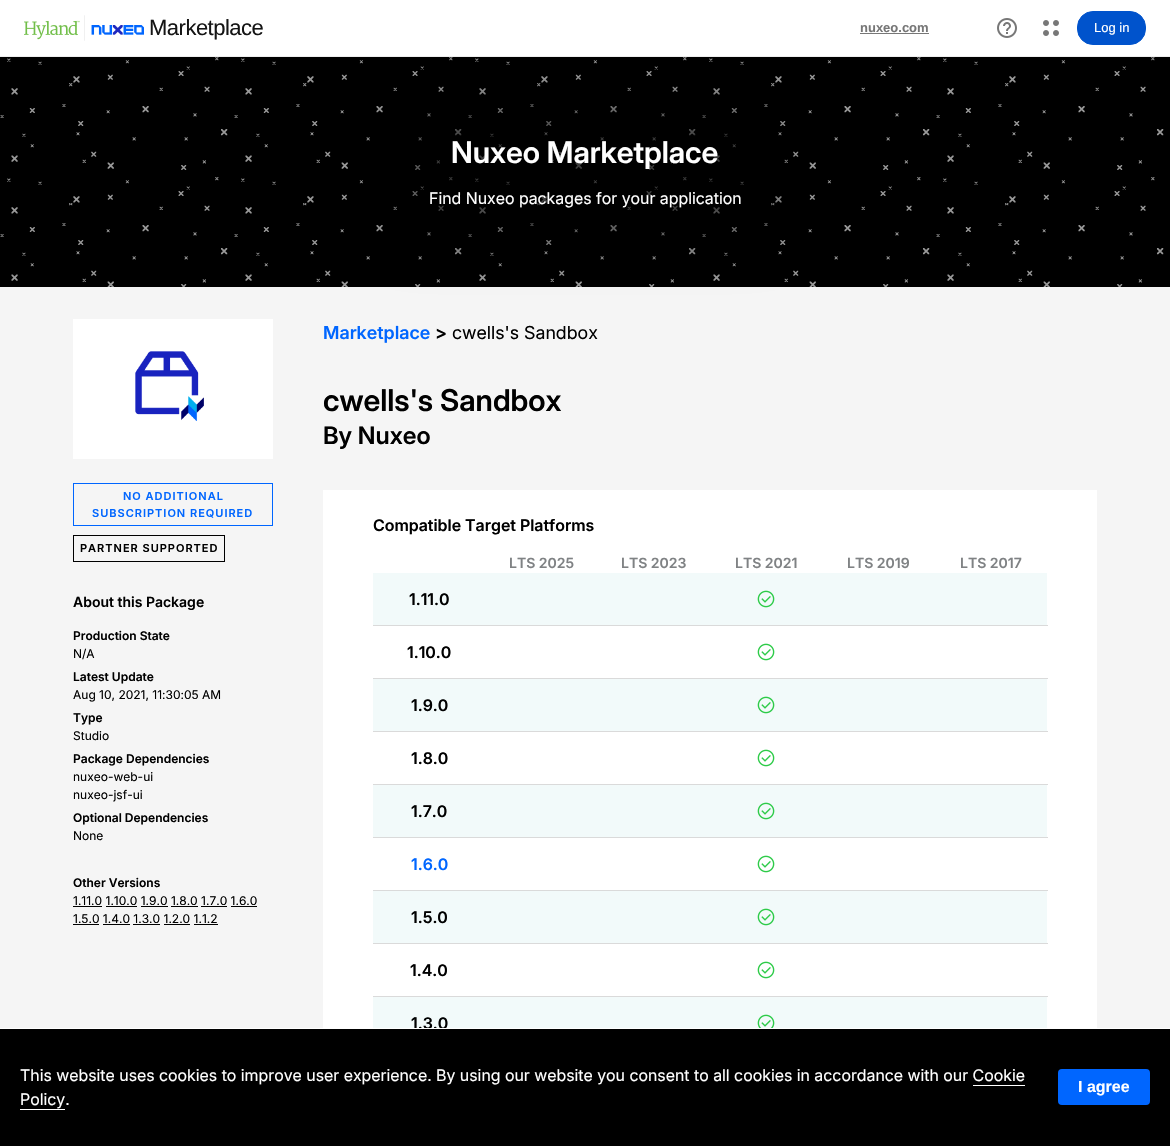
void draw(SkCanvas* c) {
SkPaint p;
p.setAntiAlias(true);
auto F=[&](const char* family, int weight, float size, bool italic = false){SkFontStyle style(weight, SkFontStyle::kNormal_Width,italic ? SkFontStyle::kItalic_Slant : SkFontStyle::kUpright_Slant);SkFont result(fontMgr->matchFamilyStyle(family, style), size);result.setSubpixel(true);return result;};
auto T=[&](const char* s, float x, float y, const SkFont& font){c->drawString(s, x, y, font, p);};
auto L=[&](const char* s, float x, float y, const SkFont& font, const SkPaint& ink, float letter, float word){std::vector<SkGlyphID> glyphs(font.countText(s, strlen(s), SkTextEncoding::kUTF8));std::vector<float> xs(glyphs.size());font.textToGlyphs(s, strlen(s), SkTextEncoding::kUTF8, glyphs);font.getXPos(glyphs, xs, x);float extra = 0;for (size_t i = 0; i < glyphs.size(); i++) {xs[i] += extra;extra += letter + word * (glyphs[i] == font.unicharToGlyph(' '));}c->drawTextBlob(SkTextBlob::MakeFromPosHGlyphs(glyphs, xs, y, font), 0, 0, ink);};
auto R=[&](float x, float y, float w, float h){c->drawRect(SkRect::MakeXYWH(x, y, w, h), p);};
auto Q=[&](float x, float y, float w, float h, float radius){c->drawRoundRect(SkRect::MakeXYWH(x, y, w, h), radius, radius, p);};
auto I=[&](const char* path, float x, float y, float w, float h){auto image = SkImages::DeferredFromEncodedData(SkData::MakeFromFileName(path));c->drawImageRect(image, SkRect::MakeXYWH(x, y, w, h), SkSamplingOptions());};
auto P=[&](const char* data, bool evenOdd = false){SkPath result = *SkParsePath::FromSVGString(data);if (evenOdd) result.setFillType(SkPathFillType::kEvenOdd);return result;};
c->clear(0xff000000);
I("4.png",0,57,1164,230);
p.setColor(0xfff5f5f5);
R(0,287,1170,741);
c->save();
c->clipPath(P("M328 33h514v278h-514zm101 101h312v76h-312z",true),true);
p.setColor(0x99000000);
p.setMaskFilter(SkMaskFilter::MakeBlur(kNormal_SkBlurStyle, 25));
c->drawRect(SkRect::MakeXYWH(404,109,362,126),p);
p.setMaskFilter(nullptr);
c->restore();
p.setColor(0xffeeeeee);
R(0,56,1170,1);
p.setColor(0xffffffff);
R(0,0,1170,56);
I("1.png",24,15,120,26);
auto f1 = F("Liberation Sans",400,22);
p.setColor(0xff151515);
L("Marketplace",149,35,f1,p,-.5,0);
auto f2 = F("Liberation Sans",700,13);
p.setColor(0xff777777);
T("nuxeo.com",860,32,f2);
R(860,33,69,1);
I("2.png",997,18,20,20);
I("3.png",1043,20,16,16);
p.setColor(0xff0053cc);
c->drawRoundRect(SkRect::MakeXYWH(1077.5,11.5,68,33),15.5,15.5,p);
p.setStroke(true);
p.setStrokeWidth(1);
c->drawRoundRect(SkRect::MakeXYWH(1077.5,11.5,68,33),15.5,15.5,p);
auto f3 = F("Liberation Sans",400,13);
p.setStroke(false);
p.setColor(0xffffffff);
T("Log in",1094,32,f3);
p.setColor(0x99000000);
R(436,134,305,76);
auto f4 = F("Inter",600,30);
p.setColor(0xffffffff);
T("Nuxeo Marketplace",451,163,f4);
auto f5 = F("Inter",400,16);
T("Find Nuxeo packages for your application",429,204,f5);
R(73,319,200,140);
I("5.png",135,351,69,70);
p.setStroke(true);
p.setColor(0xff0066ff);
c->drawRect(SkRect::MakeXYWH(73.5,483.5,199,42),p);
auto f6 = F("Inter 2",600,11);
p.setStroke(false);
L("NO ADDITIONAL",123,500,f6,p,1,0);
L("SUBSCRIPTION REQUIRED",92,517,f6,p,1,0);
p.setStroke(true);
p.setColor(0xff000000);
c->drawRect(SkRect::MakeXYWH(73.5,535.5,151,26),p);
p.setStroke(false);
L("PARTNER SUPPORTED",80,552,f6,p,1,0);
auto f7 = F("Inter 2",600,14);
T("About this Package",73,607,f7);
auto f8 = F("Inter 2",600,12);
T("Production State",73,640,f8);
auto f9 = F("Inter 2",400,12);
T("N/A",73,658,f9);
T("Latest Update",73,681,f8);
T("Aug 10, 2021, 11:30:05 AM",73,699,f9);
T("Type",73,722,f8);
T("Studio",73,740,f9);
T("Package Dependencies",73,763,f8);
T("nuxeo-web-ui",73,781,f9);
T("nuxeo-jsf-ui",73,799,f9);
T("Optional Dependencies",73,822,f8);
T("None",73,840,f9);
T("Other Versions",73,887,f8);
T("1.11.0 1.10.0 1.9.0 1.8.0 1.7.0 1.6.0",73,905,f9);
R(73,906,29,1);
R(106,906,31,1);
R(141,906,27,1);
R(171,906,27,1);
R(201,906,26,1);
R(231,906,26,1);
T("1.5.0 1.4.0 1.3.0 1.2.0 1.1.2",73,923,f9);
R(73,924,26,1);
R(103,924,27,1);
R(133,924,27,1);
R(164,924,26,1);
R(194,924,24,1);
auto f10 = F("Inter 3",600,18);
p.setColor(0xff0066ff);
T("Marketplace",323,339,f10);
p.setColor(0xff000000);
T(">",435,339,f10);
auto f11 = F("Inter 3",400,18);
T("cwells's Sandbox",452,339,f11);
T("cwells's Sandbox",323,411,f4);
auto f12 = F("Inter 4",600,24);
T("By Nuxeo",323,444,f12);
p.setColor(0xffffffff);
R(323,490,774,538);
auto f13 = F("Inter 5",600,16);
p.setColor(0xff000000);
T("Compatible Target Platforms",373,531,f13);
p.setColor(0xff7f8284);
T("LTS 2025",509,568,f7);
T("LTS 2023",621,568,f7);
T("LTS 2021",735,568,f7);
T("LTS 2019",847,568,f7);
T("LTS 2017",960,568,f7);
p.setColor(0xfff2fafa);
R(373,573,674,52);
p.setColor(0xffdadada);
R(373,625,675,1);
p.setColor(0xff000000);
T("1.11.0",409,605,f13);
I("6.png",757,590,18,18);
p.setColor(0xffdadada);
R(373,678,675,1);
p.setColor(0xff000000);
T("1.10.0",407,658,f13);
I("7.png",757,643,18,18);
p.setColor(0xfff2fafa);
R(373,679,674,52);
p.setColor(0xffdadada);
R(373,731,675,1);
p.setColor(0xff000000);
T("1.9.0",411,711,f13);
I("6.png",757,696,18,18);
p.setColor(0xffdadada);
R(373,784,675,1);
p.setColor(0xff000000);
T("1.8.0",411,764,f13);
I("7.png",757,749,18,18);
p.setColor(0xfff2fafa);
R(373,785,674,52);
p.setColor(0xffdadada);
R(373,837,675,1);
p.setColor(0xff000000);
T("1.7.0",411,817,f13);
I("6.png",757,802,18,18);
p.setColor(0xffdadada);
R(373,890,675,1);
p.setColor(0xff0066ff);
T("1.6.0",411,870,f13);
I("7.png",757,855,18,18);
p.setColor(0xfff2fafa);
R(373,891,674,52);
p.setColor(0xffdadada);
R(373,943,675,1);
p.setColor(0xff000000);
T("1.5.0",411,923,f13);
I("6.png",757,908,18,18);
p.setColor(0xffdadada);
R(373,996,675,1);
p.setColor(0xff000000);
T("1.4.0",410,976,f13);
I("7.png",757,961,18,18);
p.setColor(0xfff2fafa);
R(373,997,674,31);
p.setColor(0xff000000);
T("1.3.0",411,1029,f13);
I("8.png",757,1014,18,14);
p.setColor(0xffffffff);
R(0,1028,1170,1);
T("This website uses cookies to improve user experience. By using our website you consent to all cookies in accordance with our Cookie",20,1081,f5);
T("Policy.",20,1105,f5);
R(973,1085,52,1);
R(20,1109,45,1);
p.setColor(0xff0066ff);
Q(1058,1069,92,36,4);
auto f14 = F("Liberation Sans",700,16);
p.setColor(0xffffffff);
T("I agree",1078,1092,f14);
}
